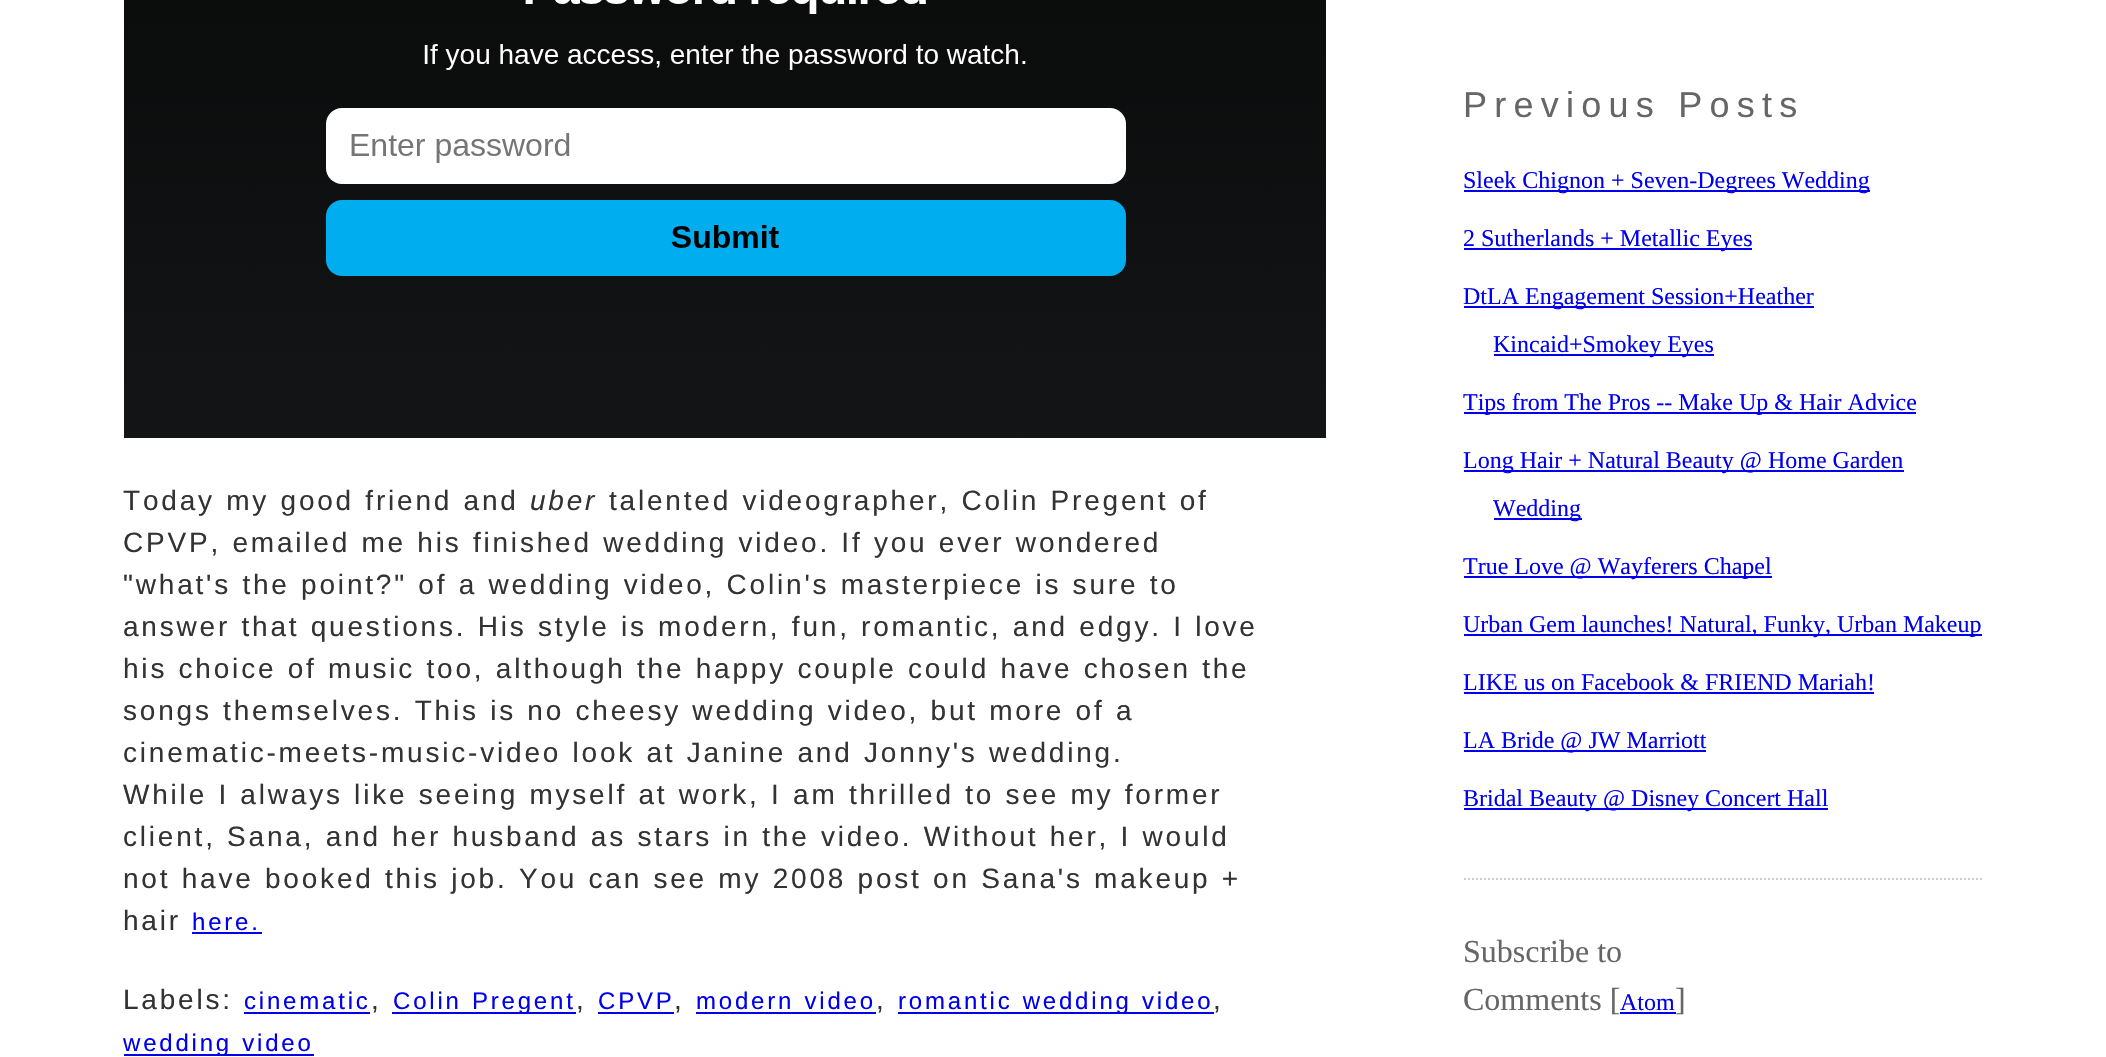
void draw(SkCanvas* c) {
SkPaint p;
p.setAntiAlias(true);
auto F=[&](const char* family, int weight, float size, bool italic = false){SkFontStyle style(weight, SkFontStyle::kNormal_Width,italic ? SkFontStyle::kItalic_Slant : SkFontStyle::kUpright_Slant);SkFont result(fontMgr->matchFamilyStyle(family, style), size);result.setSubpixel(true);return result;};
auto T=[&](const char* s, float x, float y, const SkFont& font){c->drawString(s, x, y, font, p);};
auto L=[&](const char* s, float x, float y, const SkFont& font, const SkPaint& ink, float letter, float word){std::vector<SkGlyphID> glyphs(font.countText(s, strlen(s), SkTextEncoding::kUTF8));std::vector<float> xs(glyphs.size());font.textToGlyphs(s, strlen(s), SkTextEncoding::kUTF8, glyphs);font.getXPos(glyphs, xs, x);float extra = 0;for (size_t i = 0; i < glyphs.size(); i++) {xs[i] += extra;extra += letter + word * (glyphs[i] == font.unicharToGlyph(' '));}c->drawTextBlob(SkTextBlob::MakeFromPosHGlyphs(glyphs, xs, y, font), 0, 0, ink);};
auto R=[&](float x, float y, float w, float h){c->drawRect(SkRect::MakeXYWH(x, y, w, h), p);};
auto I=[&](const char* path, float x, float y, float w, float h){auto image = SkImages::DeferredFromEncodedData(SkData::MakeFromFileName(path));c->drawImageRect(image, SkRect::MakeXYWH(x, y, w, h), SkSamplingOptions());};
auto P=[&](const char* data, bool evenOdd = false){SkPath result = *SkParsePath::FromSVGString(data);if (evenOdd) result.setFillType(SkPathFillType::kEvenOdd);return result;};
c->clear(0xffffffff);
I("1.png",124,0,1202,438);
auto f1 = F("Liberation Sans",400,28);
p.setColor(0xff333333);
L("Today my good friend and",123,510,f1,p,2.8,.8);
auto f2 = F("Liberation Sans",400,28,true);
L("uber",530,510,f2,p,2.8,0);
L("talented videographer, Colin Pregent of",609,510,f1,p,2.8,.8);
L("CPVP, emailed me his finished wedding video. If you ever wondered",123,552,f1,p,2.8,.8);
L("\"what's the point?\" of a wedding video, Colin's masterpiece is sure to",123,594,f1,p,2.8,.8);
L("answer that questions. His style is modern, fun, romantic, and edgy. I love",123,636,f1,p,2.8,.8);
L("his choice of music too, although the happy couple could have chosen the",123,678,f1,p,2.8,.8);
L("songs themselves. This is no cheesy wedding video, but more of a",123,720,f1,p,2.8,.8);
L("cinematic-meets-music-video look at Janine and Jonny's wedding.",123,762,f1,p,2.8,.8);
L("While I always like seeing myself at work, I am thrilled to see my former",123,804,f1,p,2.8,.8);
L("client, Sana, and her husband as stars in the video. Without her, I would",123,846,f1,p,2.8,.8);
L("not have booked this job. You can see my 2008 post on Sana's makeup +",123,888,f1,p,2.8,.8);
L("hair",123,930,f1,p,2.8,0);
auto f3 = F("Liberation Sans",400,24);
p.setColor(0xff0000ee);
L("here.",192,930,f3,p,2.8,0);
R(192,932,70,2);
p.setColor(0xff333333);
L("Labels:",123,1009,f1,p,2.8,0);
p.setColor(0xff0000ee);
L("cinematic",244,1009,f3,p,2.8,0);
R(244,1012,126,2);
p.setColor(0xff333333);
L(",",371,1009,f1,p,2.8,0);
p.setColor(0xff0000ee);
R(392,1012,184,2);
L("Colin Pregent",393,1009,f3,p,2.8,.8);
p.setColor(0xff333333);
L(",",576,1009,f1,p,2.8,0);
p.setColor(0xff0000ee);
L("CPVP",598,1009,f3,p,2.8,0);
R(598,1012,76,2);
p.setColor(0xff333333);
L(",",674,1009,f1,p,2.8,0);
p.setColor(0xff0000ee);
L("modern video",696,1009,f3,p,2.8,.8);
R(696,1012,180,2);
p.setColor(0xff333333);
L(",",876,1009,f1,p,2.8,0);
p.setColor(0xff0000ee);
R(898,1012,316,2);
L("romantic wedding video",898,1009,f3,p,2.8,.8);
p.setColor(0xff333333);
L(",",1213,1009,f1,p,2.8,0);
p.setColor(0xff0000ee);
R(124,1054,190,2);
L("wedding video",123,1051,f3,p,2.8,.8);
auto f4 = F("Liberation Sans",400,36);
p.setColor(0xff666666);
L("Previous Posts",1463,117,f4,p,7.25,0);
p.setStroke(true);
p.setStrokeWidth(2);
p.setColor(0xffcccccc);
p.setPathEffect(SkDashPathEffect::Make({{2,2}}, 0));
c->drawPath(P("M1464 879h520"),p);
p.setPathEffect(nullptr);
p.setStroke(false);
p.setColor(0xff0000ee);
R(1464,190,406,2);
auto f5 = F("Liberation Serif",400,24);
T("Sleek Chignon + Seven-Degrees Wedding",1463,188,f5);
R(1464,248,288,2);
T("2 Sutherlands + Metallic Eyes",1463,246,f5);
R(1464,306,350,2);
T("DtLA Engagement Session+Heather",1463,304,f5);
R(1494,354,220,2);
T("Kincaid+Smokey Eyes",1493,352,f5);
R(1464,412,452,2);
T("Tips from The Pros -- Make Up & Hair Advice",1463,410,f5);
R(1464,470,440,2);
T("Long Hair + Natural Beauty @ Home Garden",1463,468,f5);
R(1494,518,88,2);
T("Wedding",1493,516,f5);
R(1464,576,308,2);
T("True Love @ Wayferers Chapel",1463,574,f5);
R(1464,634,518,2);
T("Urban Gem launches! Natural, Funky, Urban Makeup",1463,632,f5);
T("LIKE us on Facebook & FRIEND Mariah!",1463,690,f5);
R(1464,692,410,2);
R(1464,750,242,2);
T("LA Bride @ JW Marriott",1463,748,f5);
R(1464,808,364,2);
T("Bridal Beauty @ Disney Concert Hall",1463,806,f5);
auto f6 = F("Liberation Serif",400,32);
p.setColor(0xff666666);
T("Subscribe to",1463,962,f6);
T("Comments [",1463,1010,f6);
p.setColor(0xff0000ee);
T("Atom",1620,1010,f5);
R(1620,1012,56,2);
p.setColor(0xff666666);
T("]",1675,1010,f6);
}
